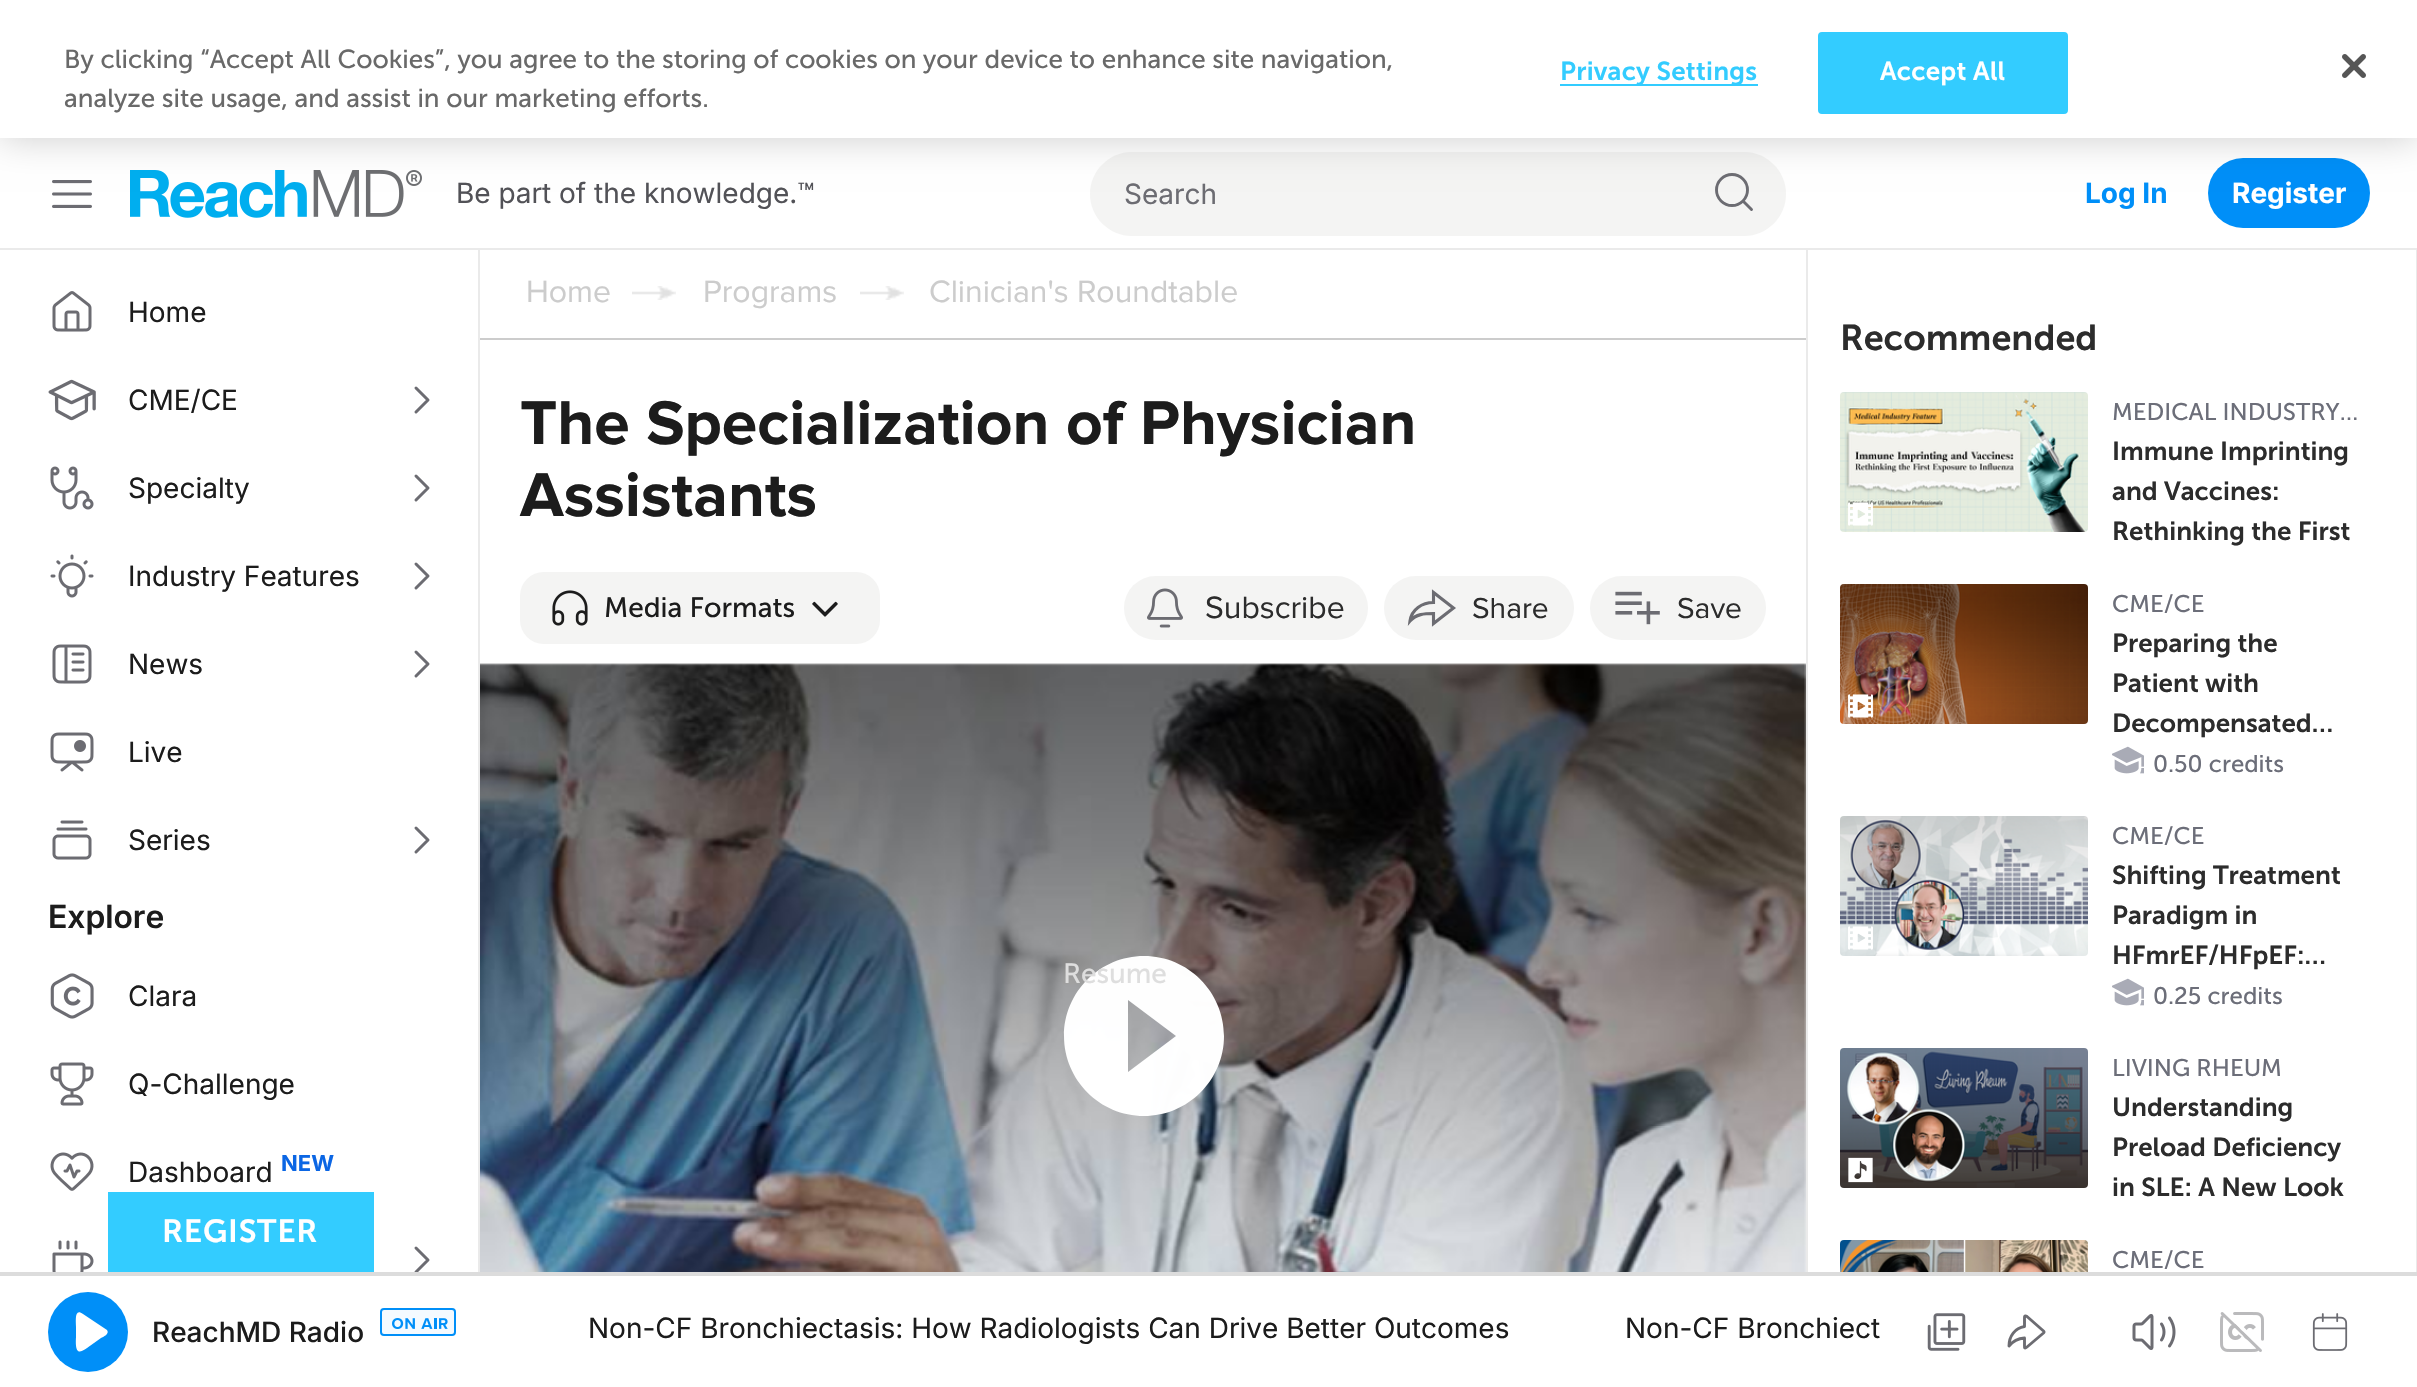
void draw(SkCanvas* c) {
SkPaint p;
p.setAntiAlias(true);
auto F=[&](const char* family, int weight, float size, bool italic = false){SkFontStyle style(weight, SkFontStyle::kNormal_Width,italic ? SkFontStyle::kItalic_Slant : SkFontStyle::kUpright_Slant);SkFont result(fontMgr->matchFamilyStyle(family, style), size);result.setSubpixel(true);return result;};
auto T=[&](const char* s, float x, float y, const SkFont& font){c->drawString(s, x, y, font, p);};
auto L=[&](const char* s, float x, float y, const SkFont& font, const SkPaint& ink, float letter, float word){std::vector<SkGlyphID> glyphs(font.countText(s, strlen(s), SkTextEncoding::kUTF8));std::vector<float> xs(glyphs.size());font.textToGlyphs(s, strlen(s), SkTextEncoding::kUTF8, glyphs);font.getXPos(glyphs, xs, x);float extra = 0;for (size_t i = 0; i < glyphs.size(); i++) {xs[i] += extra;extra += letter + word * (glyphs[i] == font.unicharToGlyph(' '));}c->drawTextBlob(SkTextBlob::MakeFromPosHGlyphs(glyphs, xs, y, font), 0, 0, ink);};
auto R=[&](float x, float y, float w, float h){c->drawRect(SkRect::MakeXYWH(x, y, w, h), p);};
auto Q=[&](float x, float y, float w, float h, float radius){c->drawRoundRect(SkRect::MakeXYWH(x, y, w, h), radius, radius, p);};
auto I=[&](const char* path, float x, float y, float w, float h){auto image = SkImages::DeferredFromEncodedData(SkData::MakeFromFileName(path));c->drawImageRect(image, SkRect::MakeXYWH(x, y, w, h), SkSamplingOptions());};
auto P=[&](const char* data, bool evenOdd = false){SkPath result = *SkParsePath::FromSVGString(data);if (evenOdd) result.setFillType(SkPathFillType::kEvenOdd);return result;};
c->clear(0xffffffff);
I("2.png",52,180,40,28);
I("3.png",130,170,292,48);
p.setColor(0xfff4f4f3);
c->drawPath(P("M1132 152h558v84h-558c-23 0-42-19-42-42c0-23 19-42 42-42z"),p);
c->drawPath(P("M1690 152h54c23 0 42 19 42 42c0 23-19 42-42 42h-54z"),p);
p.setStroke(true);
p.setStrokeWidth(2.9);
p.setStrokeCap(SkPaint::kRound_Cap);
p.setStrokeJoin(SkPaint::kRound_Join);
p.setColor(0xff6c6c72);
c->drawPath(P("M1732 205.5c8.5 0 15.5-7 15.5-15.5c0-8.5-7-15.5-15.5-15.5c-8.5 0-15.5 7-15.5 15.5c0 8.5 7 15.5 15.5 15.5zm19.5 4l-8.5-8.5"),p);
p.setStroke(false);
p.setColor(0xff008ff8);
Q(2208,158,162,70,35);
p.setColor(0x33000000);
p.setMaskFilter(SkMaskFilter::MakeBlur(kNormal_SkBlurStyle, 18));
c->drawRect(SkRect::MakeXYWH(0,0,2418,138),p);
p.setMaskFilter(nullptr);
p.setColor(0xffffffff);
R(0,0,2417,138);
auto f1 = F("Museo Sans",400,26.02);
p.setColor(0xff696969);
T("By clicking “Accept All Cookies”, you agree to the storing of cookies on your device to enhance site navigation,",64,68,f1);
T("analyze site usage, and assist in our marketing efforts.",64,107,f1);
p.setColor(0xff33ccff);
R(1560,84,198,2);
auto f2 = F("Museo Sans",600,26.02);
L("Privacy Settings",1560,80,f2,p,.25,0);
c->drawRoundRect(SkRect::MakeXYWH(1819,33,248,80),3,3,p);
p.setStroke(true);
p.setStrokeWidth(2);
p.setStrokeCap(SkPaint::kButt_Cap);
p.setStrokeJoin(SkPaint::kMiter_Join);
c->drawRoundRect(SkRect::MakeXYWH(1819,33,248,80),3,3,p);
p.setStroke(false);
p.setColor(0xffffffff);
L("Accept All",1880,80,f2,p,.25,0);
I("1.png",2342,54,24,24);
p.setColor(0xffeaeaea);
R(478,248,2,1024);
R(2416,248,1,1024);
R(1806,248,2,1024);
R(0,248,2417,2);
auto f3 = F("Inter",400,28);
p.setColor(0xff525257);
T("Be part of the knowledge.™",456,203,f3);
p.setColor(0xff6c6c72);
T("Search",1124,204,f3);
auto f4 = F("Inter",700,28);
p.setColor(0xff008ff8);
T("Log In",2085,203,f4);
p.setColor(0xffffffff);
T("Register",2232,203,f4);
I("4.png",52,291,40,41);
p.setColor(0xff1c1c1c);
T("Home",128,322,f3);
I("5.png",48,379,48,42);
T("CME/CE",128,410,f3);
p.setStroke(true);
p.setStrokeWidth(3);
p.setStrokeCap(SkPaint::kRound_Cap);
p.setStrokeJoin(SkPaint::kRound_Join);
p.setColor(0xff6c6c72);
c->drawPath(P("M416 412l12-12l-12-12"),p);
I("6.png",50,466,44,44);
p.setStroke(false);
p.setColor(0xff1c1c1c);
T("Specialty",128,498,f3);
p.setStroke(true);
p.setColor(0xff6c6c72);
c->drawPath(P("M416 500l12-12l-12-12"),p);
I("7.png",50,554,44,44);
p.setStroke(false);
p.setColor(0xff1c1c1c);
T("Industry Features",128,586,f3);
p.setStroke(true);
p.setColor(0xff6c6c72);
c->drawPath(P("M416 588l12-12l-12-12"),p);
I("8.png",52,644,40,40);
p.setStroke(false);
p.setColor(0xff1c1c1c);
T("News",128,674,f3);
p.setStroke(true);
p.setColor(0xff6c6c72);
c->drawPath(P("M416 676l12-12l-12-12"),p);
I("9.png",50,732,44,40);
p.setStroke(false);
p.setColor(0xff1c1c1c);
T("Live",128,762,f3);
I("10.png",52,820,40,40);
T("Series",128,850,f3);
p.setStroke(true);
p.setColor(0xff6c6c72);
c->drawPath(P("M416 852l12-12l-12-12"),p);
auto f5 = F("Inter",600,32);
p.setStroke(false);
p.setColor(0xff1c1c1c);
T("Explore",48,928,f5);
I("11.png",50,973,44,46);
T("Clara",128,1006,f3);
I("12.png",50,1062,44,44);
T("Q-Challenge",128,1094,f3);
I("13.png",50,1152,44,39);
T("Dashboard",128,1182,f3);
auto f6 = F("Inter",700,22);
p.setColor(0xff0b66e4);
T("NEW",281,1171,f6);
I("14.png",52,1240,42,32);
p.setStroke(true);
p.setColor(0xff6c6c72);
c->drawPath(P("M416 1272l12-12l-12-12"),p);
p.setStroke(false);
p.setColor(0xffcccccc);
R(480,338,1326,2);
auto f7 = F("Proxima Nova",400,32);
T("Home",526,302,f7);
I("15.png",632,286,44,14);
T("Programs",703,302,f7);
I("15.png",860,286,44,14);
T("Clinician's Roundtable",929,302,f7);
auto f8 = F("Proxima Nova",700,64);
p.setColor(0xff1c1c1c);
T("The Specialization of Physician",520,444,f8);
T("Assistants",520,516,f8);
p.setColor(0xfff4f4f3);
Q(520,572,360,72,24);
I("16.png",552,590,36,36);
auto f9 = F("Museo Sans",400,28);
p.setColor(0xff1c1c1c);
T("Media Formats",604,617,f9);
I("17.png",812,601,26,16);
p.setColor(0xfff4f4f3);
Q(1124,576,244,64,32);
I("18.png",1147,588,36,40);
p.setColor(0xff2c2c2c);
T("Subscribe",1205,618,f7);
p.setColor(0xfff4f4f3);
Q(1384,576,190,64,32);
p.setStroke(true);
p.setStrokeWidth(3.1);
p.setStrokeCap(SkPaint::kButt_Cap);
p.setStrokeJoin(SkPaint::kMiter_Join);
p.setColor(0xff6c6c72);
c->drawPath(P("M1433.5 615v-1.5c-9 0-17.5 .5-23.5 7.5c1.5-11.5 12-18.5 23.5-18.5v-10l20 15.5l-20 15.5z"),p);
auto f10 = F("Proxima Nova",400,30);
p.setStroke(false);
p.setColor(0xff2c2c2c);
T("Share",1472,618,f10);
p.setColor(0xfff4f4f3);
Q(1590,576,176,64,32);
I("19.png",1615,591,45,34);
p.setColor(0xff2c2c2c);
T("Save",1677,618,f10);
I("20.png",480,663,1326,609);
p.setColor(0xfcffffff);
c->drawPath(P("M1144 956c-44 0-80 36-80 80c0 44 36 80 80 80c44 0 80-36 80-80c0-44-36-80-80-80zm-16 116v-72l48 36z",true),p);
p.setColor(0xffdedede);
T("Resume",1063,983,f9);
auto f11 = F("Museo Sans",600,36);
p.setColor(0xff2c2c2c);
T("Recommended",1840,350,f11);
I("21.png",1840,392,248,140);
I("22.png",1848,502,25,24);
auto f12 = F("Museo Sans",400,24);
p.setColor(0xff6c6e79);
T("MEDICAL INDUSTRY…",2112,420,f12);
auto f13 = F("Museo Sans",600,26);
p.setColor(0xff2c2c2c);
T("Immune Imprinting",2112,460,f13);
T("and Vaccines:",2112,500,f13);
T("Rethinking the First",2112,540,f13);
I("23.png",1840,584,248,140);
I("24.png",1848,694,25,24);
p.setColor(0xff6c6e79);
T("CME/CE",2112,612,f12);
p.setColor(0xff2c2c2c);
T("Preparing the",2112,652,f13);
T("Patient with",2112,692,f13);
T("Decompensated…",2112,732,f13);
I("25.png",2112,746,32,28);
p.setColor(0xff6c6e79);
T("0.50 credits",2153,772,f12);
I("26.png",1840,816,248,140);
I("27.png",1848,926,25,24);
T("CME/CE",2112,844,f12);
p.setColor(0xff2c2c2c);
T("Shifting Treatment",2112,884,f13);
T("Paradigm in",2112,924,f13);
T("HFmrEF/HFpEF:…",2112,964,f13);
I("25.png",2112,978,32,28);
p.setColor(0xff6c6e79);
T("0.25 credits",2153,1004,f12);
I("28.png",1840,1048,248,140);
I("29.png",1848,1157,25,26);
T("LIVING RHEUM",2112,1076,f12);
p.setColor(0xff2c2c2c);
T("Understanding",2112,1116,f13);
T("Preload Deficiency",2112,1156,f13);
T("in SLE: A New Look",2112,1196,f13);
I("30.png",1840,1240,248,32);
p.setColor(0xff6c6e79);
T("CME/CE",2112,1268,f12);
p.setColor(0xff33ccff);
R(108,1192,266,80);
auto f14 = F("Museo Sans",600,32);
p.setColor(0xffffffff);
L("REGISTER",162,1242,f14,p,.75,0);
p.setColor(0xffdcdcdc);
R(0,1272,2417,4);
p.setColor(0xff008ff8);
c->drawCircle(88,1332,40,p);
p.setColor(0xffffffff);
c->drawPath(P("M83 1314l24 16c3 4-4 7-6 8l-14 10c-2 1-6 5-9 3c-3-2-2-13-2-14v-10c0-5-2-20 7-13z",true),p);
auto f15 = F("Inter",500,28);
p.setColor(0xff1c1c1c);
T("ReachMD Radio",152,1342,f15);
p.setColor(0xfff4faff);
c->drawRoundRect(SkRect::MakeXYWH(381,1309,74,26),3,3,p);
p.setStroke(true);
p.setStrokeWidth(2);
p.setColor(0xff008ff8);
c->drawRoundRect(SkRect::MakeXYWH(381,1309,74,26),3,3,p);
I("31.png",392,1318,56,11);
p.setStroke(false);
p.setColor(0xff1c1c1c);
T("Non-CF Bronchiectasis: How Radiologists Can Drive Better Outcomes",588,1338,f3);
T("Non-CF Bronchiect",1625,1338,f3);
I("32.png",1927,1313,39,38);
p.setStroke(true);
p.setStrokeWidth(2.9);
p.setStrokeCap(SkPaint::kRound_Cap);
p.setStrokeJoin(SkPaint::kRound_Join);
p.setColor(0xff6c6c72);
c->drawPath(P("M2043.5 1333c.5-.5 1-1 0-2l-16.5-14.5c-3-2-2.5 1-2.5 3v7c-9.5 1.5-15.5 9.5-15.5 19.5c4-5 9.5-7.5 15.5-8v6.5c0 2.5-.5 5 2.5 2.5z"),p);
I("33.png",2132,1314,44,36);
I("34.png",2220,1312,44,40);
I("35.png",2312,1313,36,38);
}
